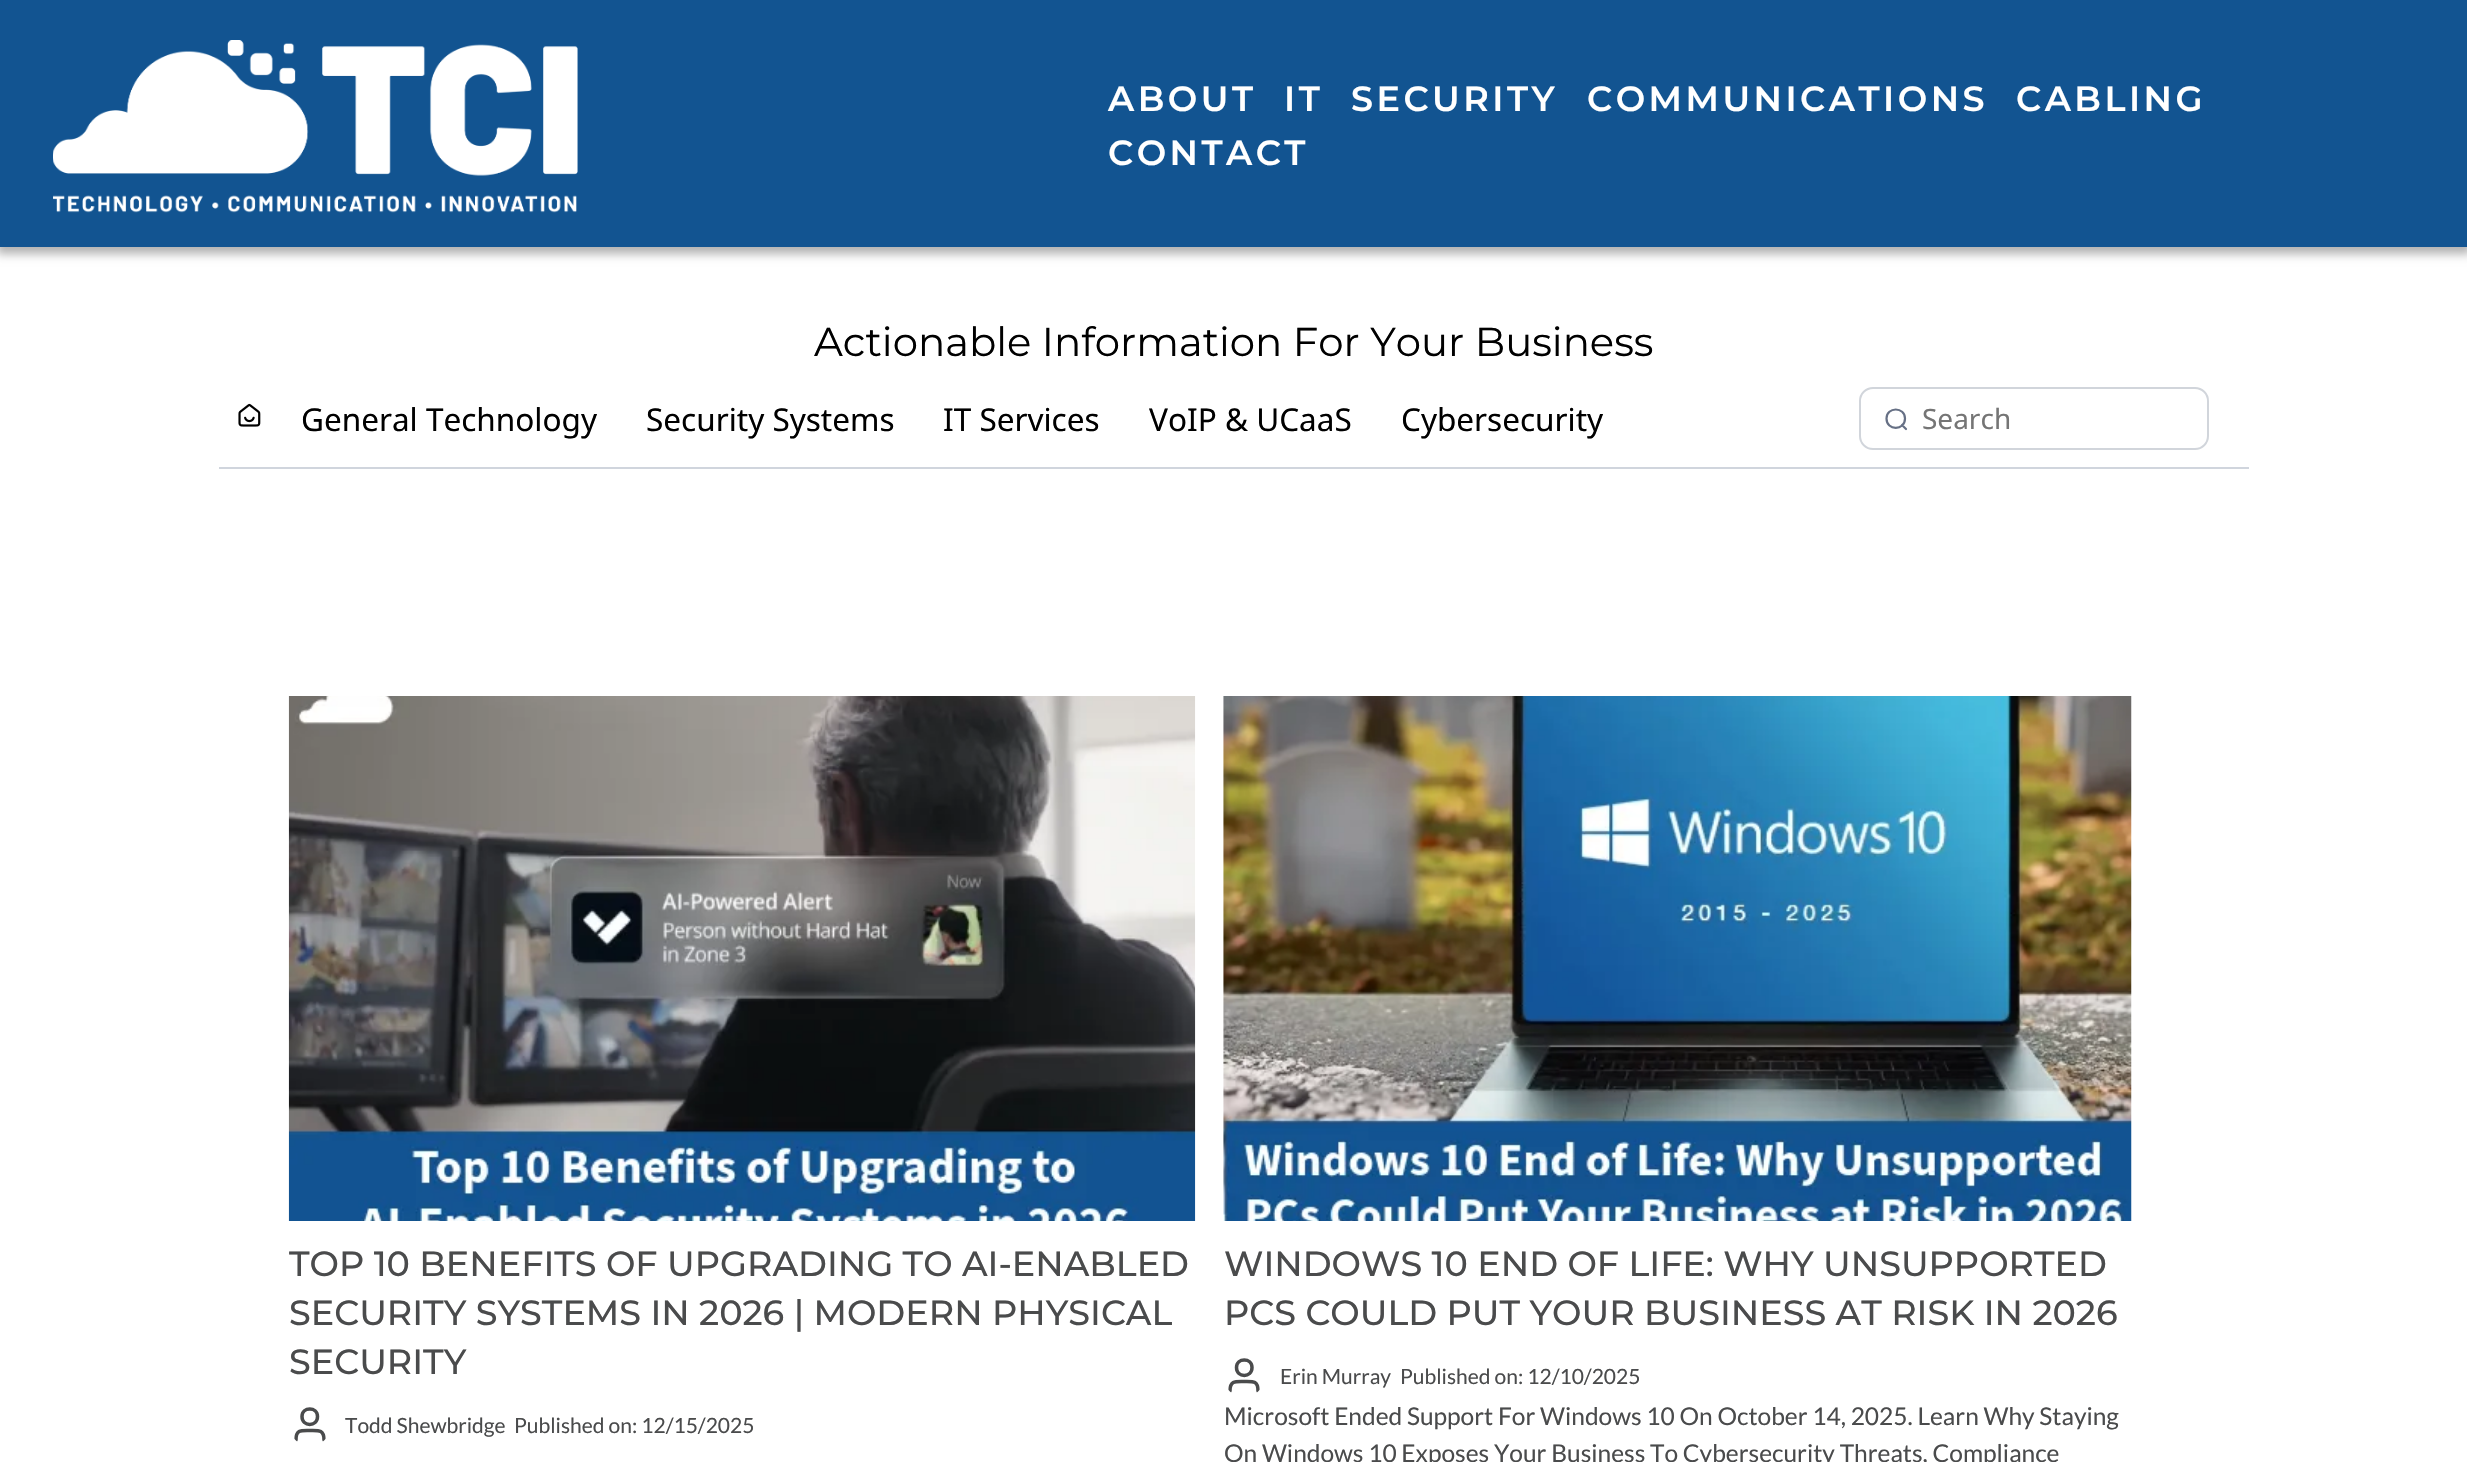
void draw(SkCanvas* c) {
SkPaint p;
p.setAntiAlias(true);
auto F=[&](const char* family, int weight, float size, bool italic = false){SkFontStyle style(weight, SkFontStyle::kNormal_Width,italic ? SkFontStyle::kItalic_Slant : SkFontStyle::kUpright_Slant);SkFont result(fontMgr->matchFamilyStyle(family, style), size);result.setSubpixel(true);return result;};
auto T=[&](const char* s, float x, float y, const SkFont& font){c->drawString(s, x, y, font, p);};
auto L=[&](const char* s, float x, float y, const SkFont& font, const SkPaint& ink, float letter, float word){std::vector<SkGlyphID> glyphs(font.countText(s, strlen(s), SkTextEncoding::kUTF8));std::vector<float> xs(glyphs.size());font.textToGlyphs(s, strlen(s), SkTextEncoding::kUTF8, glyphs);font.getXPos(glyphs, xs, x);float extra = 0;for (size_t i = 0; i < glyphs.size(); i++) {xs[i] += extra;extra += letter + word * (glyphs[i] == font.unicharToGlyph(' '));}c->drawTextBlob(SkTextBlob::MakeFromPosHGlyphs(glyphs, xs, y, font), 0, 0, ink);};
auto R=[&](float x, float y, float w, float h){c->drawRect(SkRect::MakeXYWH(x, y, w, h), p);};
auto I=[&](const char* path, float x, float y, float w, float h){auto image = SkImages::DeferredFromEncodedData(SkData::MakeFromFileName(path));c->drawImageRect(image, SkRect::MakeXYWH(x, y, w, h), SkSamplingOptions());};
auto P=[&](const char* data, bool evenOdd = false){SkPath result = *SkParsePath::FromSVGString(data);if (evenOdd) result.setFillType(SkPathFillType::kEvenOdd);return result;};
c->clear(0xffffffff);
p.setColor(0xff125491);
R(0,0,2467,247);
c->save();
c->clipPath(P("M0 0h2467v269h-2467zm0 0h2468v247h-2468z",true),true);
p.setColor(0x4d000000);
p.setMaskFilter(SkMaskFilter::MakeBlur(kNormal_SkBlurStyle, 4.5));
c->drawRect(SkRect::MakeXYWH(-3,0,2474,254),p);
p.setMaskFilter(nullptr);
c->restore();
I("1.png",53,40,525,173);
auto f1 = F("Montserrat",600,35);
p.setColor(0xffffffff);
L("ABOUT",1108,111,f1,p,3.5,0);
L("IT",1284,111,f1,p,3.5,0);
L("SECURITY",1351,111,f1,p,3.5,0);
L("COMMUNICATIONS",1587,111,f1,p,3.5,0);
L("CABLING",2016,111,f1,p,3.5,0);
L("CONTACT",1108,165,f1,p,3.5,0);
auto f2 = F("Montserrat",400,40.25);
p.setColor(0xff000000);
T("Actionable Information For Your Business",814,356,f2);
p.setColor(0xffd0d5dd);
R(219,467,2030,2);
I("2.png",238,403,23,24);
auto f3 = F("Noto Sans",400,31.5);
p.setColor(0xff000000);
T("General Technology",301,431,f3);
T("Security Systems",646,431,f3);
T("IT Services",943,431,f3);
T("VoIP & UCaaS",1149,431,f3);
T("Cybersecurity",1401,431,f3);
p.setStroke(true);
p.setStrokeWidth(2.2);
p.setStrokeCap(SkPaint::kRound_Cap);
p.setStrokeJoin(SkPaint::kRound_Join);
p.setColor(0xff667085);
c->drawPath(P("M1906 429l-4-4m3-6.5c0 12.5-18.5 12.5-18.5 0c0-12 18.5-12 18.5 0"),p);
p.setStrokeWidth(2);
p.setStrokeCap(SkPaint::kButt_Cap);
p.setStrokeJoin(SkPaint::kMiter_Join);
p.setColor(0xffd1d5db);
c->drawRoundRect(SkRect::MakeXYWH(1860,388,348,61),13,13,p);
auto f4 = F("Noto Sans",400,28);
p.setStroke(false);
p.setColor(0xff757575);
T("Search",1922,429,f4);
I("3.png",288,696,908,525);
auto f5 = F("Montserrat",500,35);
p.setColor(0xff4a4b4c);
T("TOP 10 BENEFITS OF UPGRADING TO AI-ENABLED",289,1276,f5);
T("SECURITY SYSTEMS IN 2026 | MODERN PHYSICAL",289,1325,f5);
T("SECURITY",289,1374,f5);
c->save();
c->clipPath(P("M310 1404c11.5 0 21 9.5 21 21c0 11.5-9.5 21-21 21c-11.5 0-21-9.5-21-21c0-11.5 9.5-21 21-21z"),true);
p.setStroke(true);
p.setStrokeWidth(3.5);
p.setStrokeCap(SkPaint::kRound_Cap);
p.setStrokeJoin(SkPaint::kRound_Join);
c->drawPath(P("M324 1440c0-10.5-5.5-9.5-14-9.5c-9 0-14-1-14 9.5m21.5-23.5c0 10.5-15.5 10.5-15.5 0c0-10 15.5-10 15.5 0z"),p);
c->restore();
auto f6 = F("Lato",400,21);
p.setStroke(false);
T("Todd Shewbridge",345,1433,f6);
T("Published on: 12/15/2025",514,1433,f6);
I("4.png",1223,696,909,525);
T("WINDOWS 10 END OF LIFE: WHY UNSUPPORTED",1224,1276,f5);
T("PCS COULD PUT YOUR BUSINESS AT RISK IN 2026",1224,1325,f5);
c->save();
c->clipPath(P("M1244 1355c11.5 0 21 9.5 21 21c0 11.5-9.5 21-21 21c-11.5 0-21-9.5-21-21c0-11.5 9.5-21 21-21z"),true);
p.setStroke(true);
c->drawPath(P("M1258 1391c0-10.5-5-9.5-14-9.5c-8.5 0-14-1-14 9.5m22-23.5c0 10.5-15.5 10.5-15.5 0c0-10 15.5-10 15.5 0z"),p);
c->restore();
p.setStroke(false);
T("Erin Murray",1280,1384,f6);
T("Published on: 12/10/2025",1400,1384,f6);
auto f7 = F("Lato",400,24.5);
T("Microsoft Ended Support For Windows 10 On October 14, 2025. Learn Why Staying",1224,1425,f7);
T("On Windows 10 Exposes Your Business To Cybersecurity Threats, Compliance",1224,1462,f7);
}
